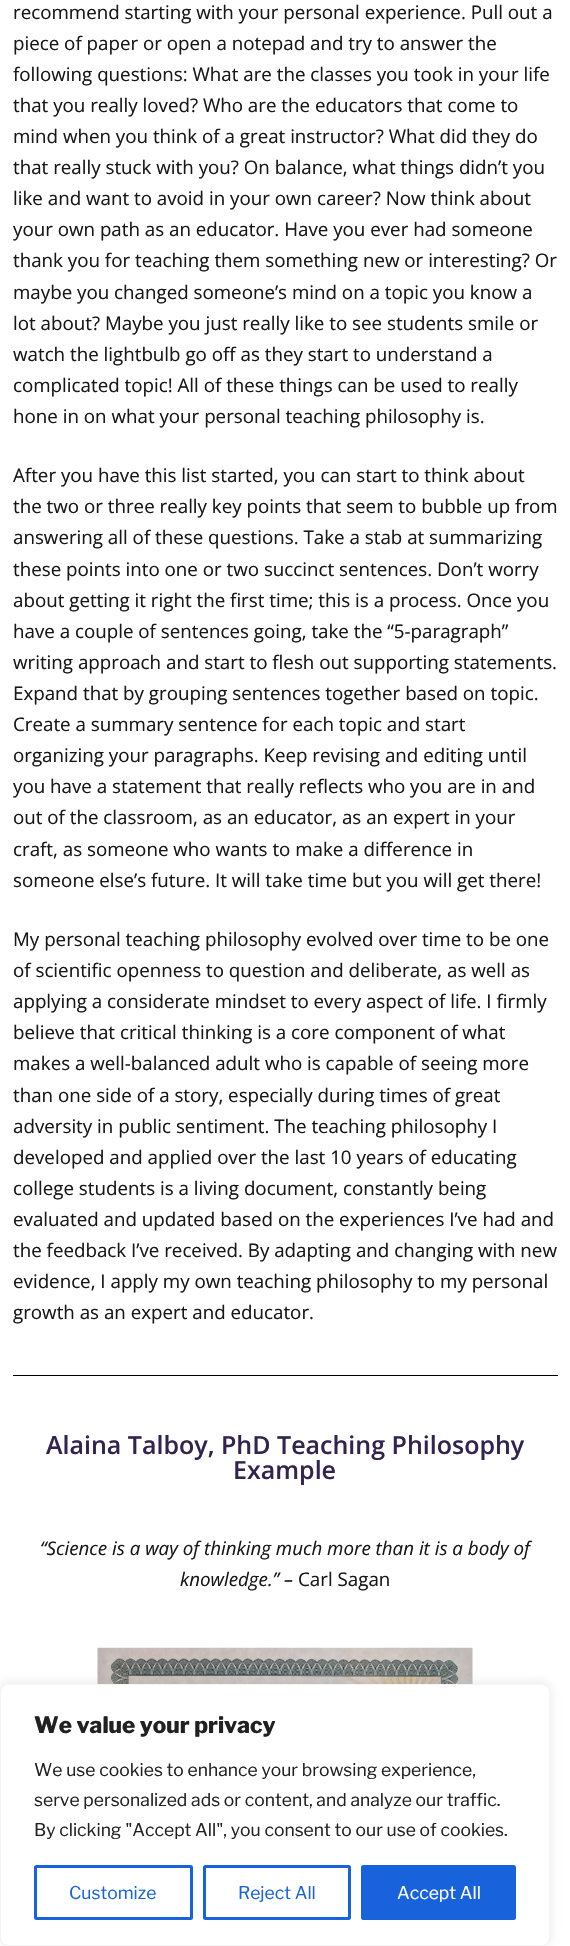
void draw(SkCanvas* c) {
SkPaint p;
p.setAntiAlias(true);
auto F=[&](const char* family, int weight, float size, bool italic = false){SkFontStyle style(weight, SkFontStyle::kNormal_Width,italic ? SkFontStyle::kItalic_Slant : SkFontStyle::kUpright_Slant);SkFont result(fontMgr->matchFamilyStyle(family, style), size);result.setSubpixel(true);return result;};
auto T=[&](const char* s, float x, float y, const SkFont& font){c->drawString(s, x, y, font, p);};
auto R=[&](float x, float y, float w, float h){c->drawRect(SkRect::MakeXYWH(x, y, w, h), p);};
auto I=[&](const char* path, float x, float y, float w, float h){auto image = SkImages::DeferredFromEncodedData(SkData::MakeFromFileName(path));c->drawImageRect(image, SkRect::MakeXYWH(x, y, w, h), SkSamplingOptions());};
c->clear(0xffffffff);
auto f1 = F("Open Sans",400,18.75);
p.setColor(0xff181717);
T("recommend starting with your personal experience. Pull out a",13,19,f1);
T("piece of paper or open a notepad and try to answer the",13,50,f1);
T("following questions: What are the classes you took in your life",13,81,f1);
T("that you really loved? Who are the educators that come to",13,112,f1);
T("mind when you think of a great instructor? What did they do",13,143,f1);
T("that really stuck with you? On balance, what things didn’t you",13,174,f1);
T("like and want to avoid in your own career? Now think about",13,205,f1);
T("your own path as an educator. Have you ever had someone",13,236,f1);
T("thank you for teaching them something new or interesting? Or",13,267,f1);
T("maybe you changed someone’s mind on a topic you know a",13,299,f1);
T("lot about? Maybe you just really like to see students smile or",13,330,f1);
T("watch the lightbulb go off as they start to understand a",13,361,f1);
T("complicated topic! All of these things can be used to really",13,392,f1);
T("hone in on what your personal teaching philosophy is.",13,423,f1);
T("After you have this list started, you can start to think about",13,482,f1);
T("the two or three really key points that seem to bubble up from",13,513,f1);
T("answering all of these questions. Take a stab at summarizing",13,544,f1);
T("these points into one or two succinct sentences. Don’t worry",13,576,f1);
T("about getting it right the first time; this is a process. Once you",13,607,f1);
T("have a couple of sentences going, take the “5-paragraph”",13,638,f1);
T("writing approach and start to flesh out supporting statements.",13,669,f1);
T("Expand that by grouping sentences together based on topic.",13,700,f1);
T("Create a summary sentence for each topic and start",13,731,f1);
T("organizing your paragraphs. Keep revising and editing until",13,762,f1);
T("you have a statement that really reflects who you are in and",13,793,f1);
T("out of the classroom, as an educator, as an expert in your",13,824,f1);
T("craft, as someone who wants to make a difference in",13,856,f1);
T("someone else’s future. It will take time but you will get there!",13,887,f1);
T("My personal teaching philosophy evolved over time to be one",13,946,f1);
T("of scientific openness to question and deliberate, as well as",13,977,f1);
T("applying a considerate mindset to every aspect of life. I firmly",13,1008,f1);
T("believe that critical thinking is a core component of what",13,1039,f1);
T("makes a well-balanced adult who is capable of seeing more",13,1070,f1);
T("than one side of a story, especially during times of great",13,1102,f1);
T("adversity in public sentiment. The teaching philosophy I",13,1133,f1);
T("developed and applied over the last 10 years of educating",13,1164,f1);
T("college students is a living document, constantly being",13,1195,f1);
T("evaluated and updated based on the experiences I’ve had and",13,1226,f1);
T("the feedback I’ve received. By adapting and changing with new",13,1257,f1);
T("evidence, I apply my own teaching philosophy to my personal",13,1288,f1);
T("growth as an expert and educator.",13,1319,f1);
p.setColor(0xff000000);
R(13,1375,545,1);
auto f2 = F("Open Sans",600,25);
p.setColor(0xff32244f);
T("Alaina Talboy, PhD Teaching Philosophy",46,1454,f2);
T("Example",233,1479,f2);
auto f3 = F("Open Sans",400,18.75,true);
p.setColor(0xff181717);
T("“Science is a way of thinking much more than it is a body of",40,1555,f3);
T("knowledge.” –",180,1586,f3);
T("Carl Sagan",298,1586,f1);
I("1.png",97,1647,376,37);
p.setColor(0x4dacabab);
p.setMaskFilter(SkMaskFilter::MakeBlur(kNormal_SkBlurStyle, 6));
c->drawRoundRect(SkRect::MakeXYWH(0,1683,550,262),8,8,p);
p.setMaskFilter(nullptr);
p.setColor(0xffffffff);
c->drawRoundRect(SkRect::MakeXYWH(.5,1684.5,549,261),7.5,7.5,p);
p.setStroke(true);
p.setStrokeWidth(1);
p.setColor(0xfff4f4f4);
c->drawRoundRect(SkRect::MakeXYWH(.5,1684.5,549,261),7.5,7.5,p);
auto f4 = F("Libre Franklin",100,22.5);
p.setStroke(false);
p.setColor(0xff212121);
T("We value your privacy",34,1733,f4);
auto f5 = F("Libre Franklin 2",100,17.5);
T("We use cookies to enhance your browsing experience,",34,1776,f5);
T("serve personalized ads or content, and analyze our traffic.",34,1806,f5);
T("By clicking \"Accept All\", you consent to our use of cookies.",34,1836,f5);
p.setStroke(true);
p.setStrokeWidth(3);
p.setColor(0xff1863dc);
c->drawRoundRect(SkRect::MakeXYWH(35.5,1866.5,156,52),1,1,p);
p.setStroke(false);
T("Customize",69,1899,f5);
p.setStroke(true);
c->drawRoundRect(SkRect::MakeXYWH(204.5,1866.5,145,52),1,1,p);
p.setStroke(false);
T("Reject All",238,1899,f5);
c->drawRoundRect(SkRect::MakeXYWH(362.5,1866.5,152,52),1,1,p);
p.setStroke(true);
c->drawRoundRect(SkRect::MakeXYWH(362.5,1866.5,152,52),1,1,p);
p.setStroke(false);
p.setColor(0xffffffff);
T("Accept All",397,1899,f5);
}
